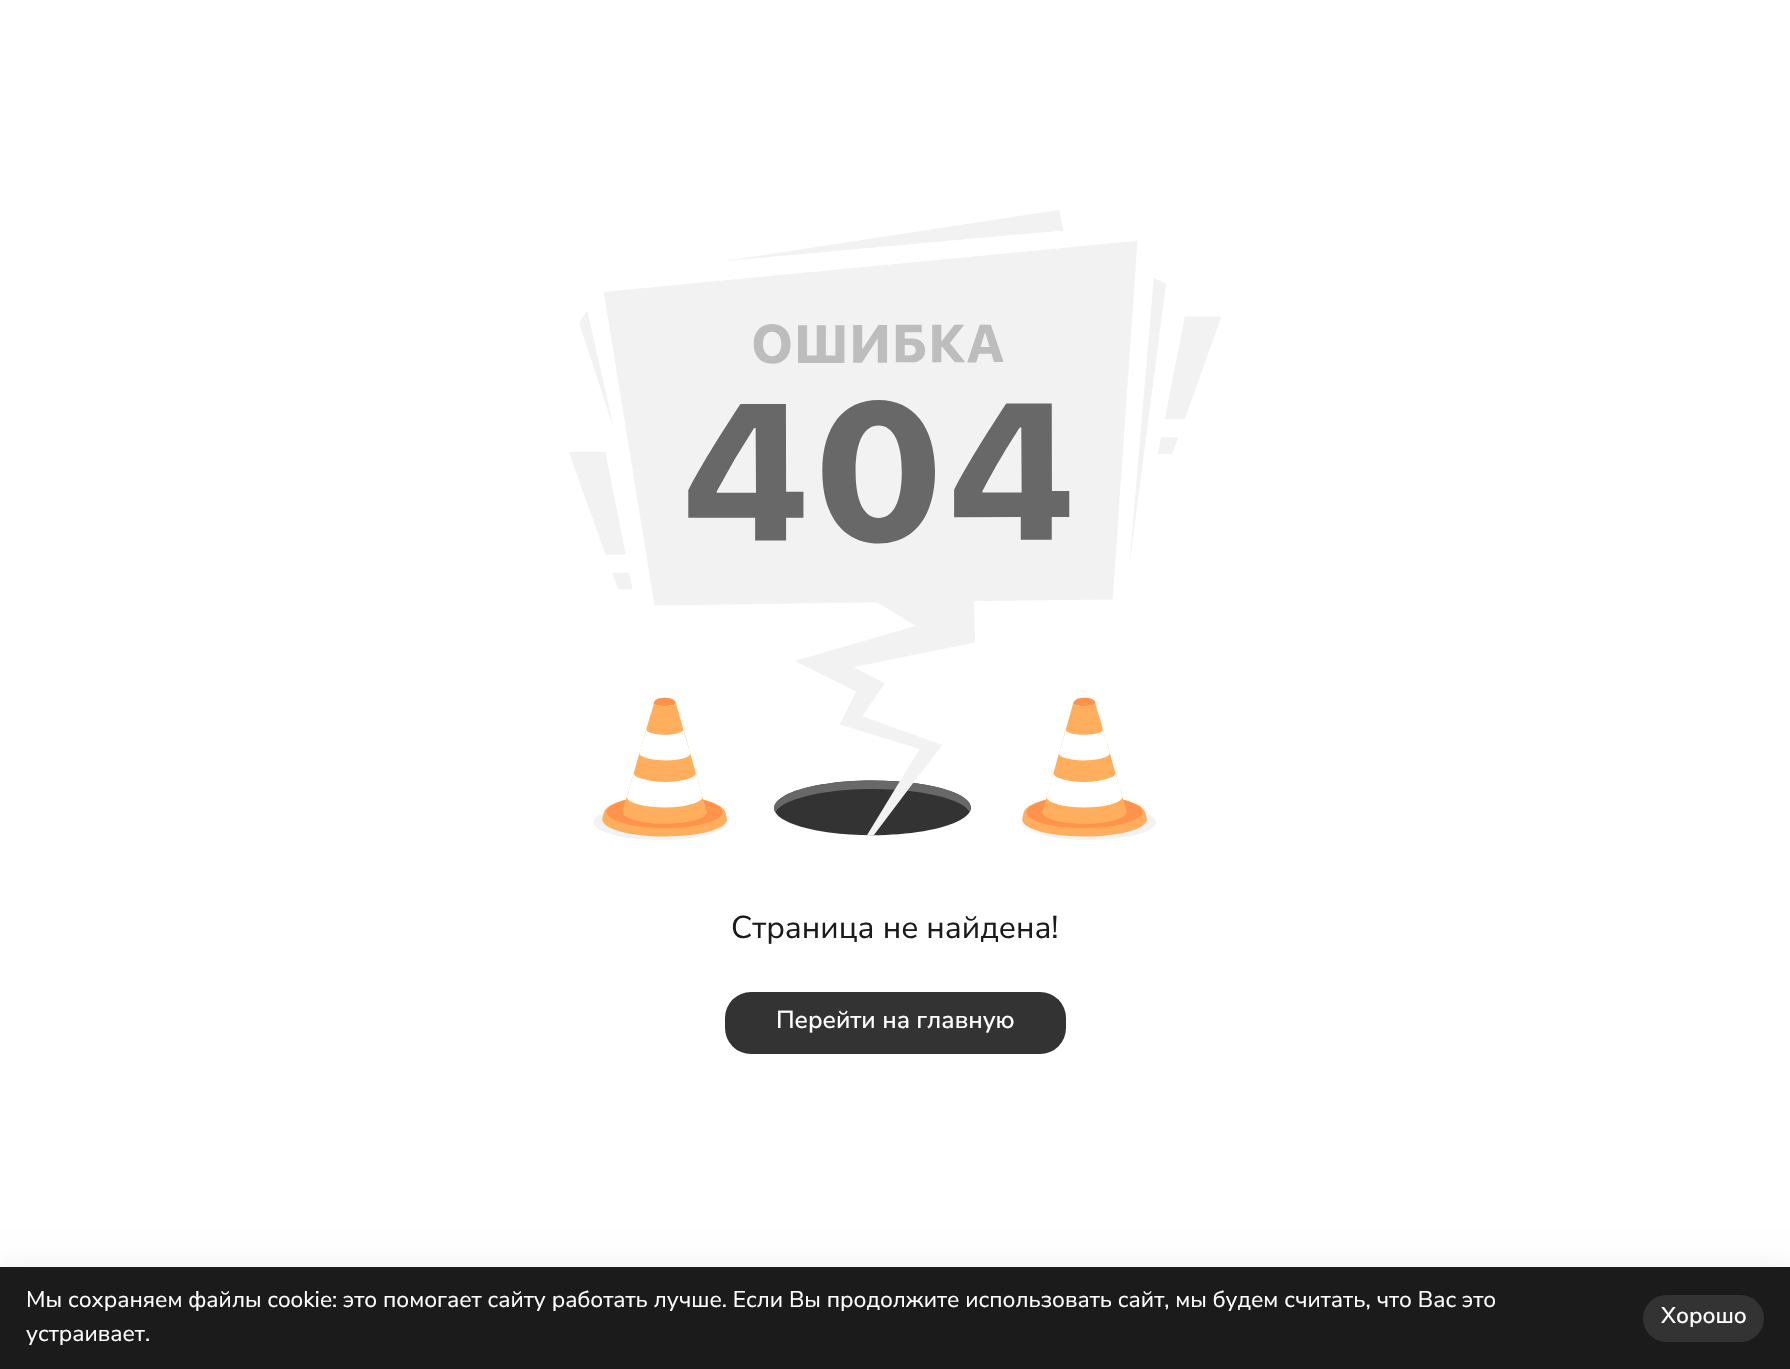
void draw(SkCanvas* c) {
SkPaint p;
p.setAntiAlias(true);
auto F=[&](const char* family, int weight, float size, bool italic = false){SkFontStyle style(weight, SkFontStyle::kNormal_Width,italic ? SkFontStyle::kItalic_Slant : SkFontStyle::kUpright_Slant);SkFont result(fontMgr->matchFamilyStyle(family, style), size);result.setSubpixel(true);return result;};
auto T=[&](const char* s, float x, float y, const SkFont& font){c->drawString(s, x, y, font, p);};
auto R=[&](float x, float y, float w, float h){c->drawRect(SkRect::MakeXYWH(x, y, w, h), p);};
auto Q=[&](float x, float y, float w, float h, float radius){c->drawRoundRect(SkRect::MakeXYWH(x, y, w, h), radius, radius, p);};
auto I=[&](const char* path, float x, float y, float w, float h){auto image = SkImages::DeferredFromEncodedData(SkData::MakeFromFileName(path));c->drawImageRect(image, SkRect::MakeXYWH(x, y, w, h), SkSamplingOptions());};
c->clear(0xffffffff);
I("1.png",569,210,652,630);
auto f1 = F("Nunito Sans",400,31.5);
p.setColor(0xff1b1b1b);
T("Страница не найдена!",731,938,f1);
p.setColor(0xff333333);
Q(725,992,341,62,26);
auto f2 = F("Nunito Sans",500,24.5);
p.setColor(0xffffffff);
T("Перейти на главную",776,1028,f2);
p.setColor(0x12000000);
p.setMaskFilter(SkMaskFilter::MakeBlur(kNormal_SkBlurStyle, 13));
c->drawRect(SkRect::MakeXYWH(0,1267,1790,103),p);
p.setMaskFilter(nullptr);
p.setColor(0xff1b1b1b);
R(0,1267,1790,102);
auto f3 = F("Nunito Sans",400,22.75);
p.setColor(0xffffffff);
T("Мы сохраняем файлы cookie: это помогает сайту работать лучше. Если Вы продолжите использовать сайт, мы будем считать, что Вас это",26,1307,f3);
T("устраивает.",26,1341,f3);
p.setColor(0xff333333);
Q(1643,1295,121,47,23.5);
auto f4 = F("Nunito Sans",500,22.75);
p.setColor(0xffffffff);
T("Хорошо",1661,1323,f4);
}
